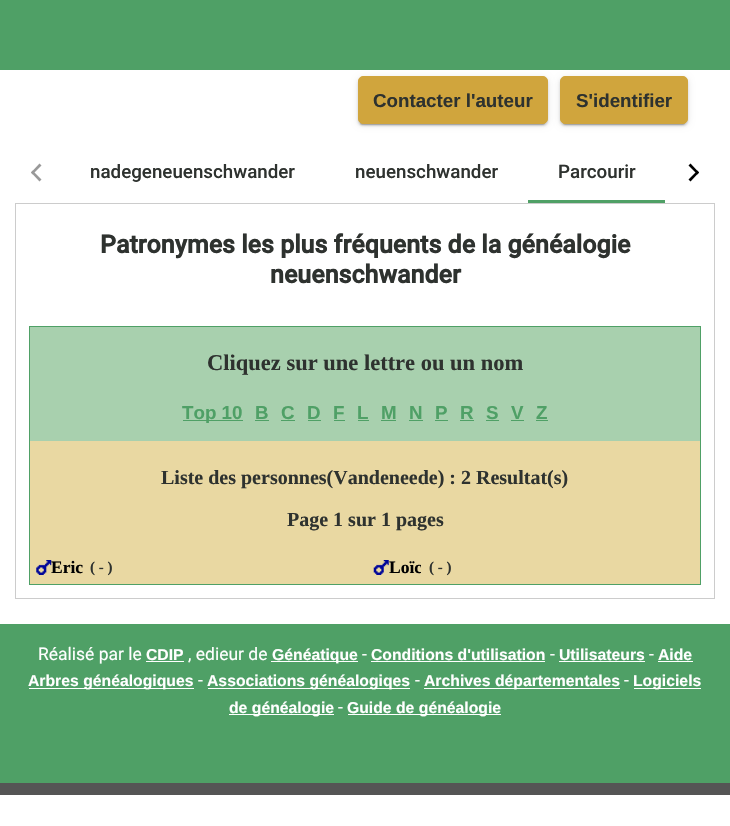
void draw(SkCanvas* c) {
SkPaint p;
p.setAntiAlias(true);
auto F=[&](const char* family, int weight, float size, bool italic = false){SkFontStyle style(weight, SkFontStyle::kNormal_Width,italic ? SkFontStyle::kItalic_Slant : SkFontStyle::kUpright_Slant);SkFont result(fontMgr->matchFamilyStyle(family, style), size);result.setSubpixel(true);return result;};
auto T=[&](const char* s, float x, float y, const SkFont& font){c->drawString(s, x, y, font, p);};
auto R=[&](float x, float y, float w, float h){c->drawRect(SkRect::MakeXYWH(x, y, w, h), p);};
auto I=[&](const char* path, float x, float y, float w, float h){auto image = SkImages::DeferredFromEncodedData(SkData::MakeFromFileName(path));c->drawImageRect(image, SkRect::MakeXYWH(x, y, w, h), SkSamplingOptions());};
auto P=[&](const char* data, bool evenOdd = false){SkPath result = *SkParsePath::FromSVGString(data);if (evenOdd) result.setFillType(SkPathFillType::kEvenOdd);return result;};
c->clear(0xffffffff);
p.setColor(0xff4fa066);
R(0,0,730,70);
p.setColor(0x1f000000);
p.setMaskFilter(SkMaskFilter::MakeBlur(kNormal_SkBlurStyle, 3));
c->drawRoundRect(SkRect::MakeXYWH(358,78,190,47),5,5,p);
p.setMaskFilter(nullptr);
p.setColor(0x24000000);
p.setMaskFilter(SkMaskFilter::MakeBlur(kNormal_SkBlurStyle, 1));
c->drawRoundRect(SkRect::MakeXYWH(358,79,190,47),5,5,p);
p.setMaskFilter(nullptr);
p.setColor(0x33000000);
p.setMaskFilter(SkMaskFilter::MakeBlur(kNormal_SkBlurStyle, .5));
c->drawRoundRect(SkRect::MakeXYWH(360,83,185,42),2.5,2.5,p);
p.setMaskFilter(nullptr);
p.setColor(0xffd0a53d);
c->drawRoundRect(SkRect::MakeXYWH(358.5,76.5,189,47),4.5,4.5,p);
p.setStroke(true);
p.setStrokeWidth(1);
c->drawRoundRect(SkRect::MakeXYWH(358.5,76.5,189,47),4.5,4.5,p);
auto f1 = F("Liberation Sans",700,18.75);
p.setStroke(false);
p.setColor(0xff2e322f);
T("Contacter l'auteur",373,107,f1);
p.setColor(0x1f000000);
p.setMaskFilter(SkMaskFilter::MakeBlur(kNormal_SkBlurStyle, 3));
c->drawRoundRect(SkRect::MakeXYWH(560,78,128,47),5,5,p);
p.setMaskFilter(nullptr);
p.setColor(0x24000000);
p.setMaskFilter(SkMaskFilter::MakeBlur(kNormal_SkBlurStyle, 1));
c->drawRoundRect(SkRect::MakeXYWH(560,79,128,47),5,5,p);
p.setMaskFilter(nullptr);
p.setColor(0x33000000);
p.setMaskFilter(SkMaskFilter::MakeBlur(kNormal_SkBlurStyle, .5));
c->drawRoundRect(SkRect::MakeXYWH(563,83,122,42),2.5,2.5,p);
p.setMaskFilter(nullptr);
p.setColor(0xffd0a53d);
c->drawRoundRect(SkRect::MakeXYWH(560.5,76.5,127,47),4.5,4.5,p);
p.setStroke(true);
c->drawRoundRect(SkRect::MakeXYWH(560.5,76.5,127,47),4.5,4.5,p);
p.setStroke(false);
p.setColor(0xff2e322f);
T("S'identifier",576,107,f1);
p.setColor(0xff999999);
c->drawPath(P("M39.5 181.5l-8.5-9l1.5-2l9 9z"),p);
c->drawPath(P("M32.5 174.5l-1.5-2l8.5-9l2 2z"),p);
auto f2 = F("Roboto",500,18.75);
p.setColor(0xff2e322f);
T("nadegeneuenschwander",90,178,f2);
T("neuenschwander",355,178,f2);
T("Parcourir",558,178,f2);
p.setColor(0xff4fa066);
R(528,200,137,3);
p.setColor(0xff000000);
c->drawPath(P("M690.5 163.5l8.5 9l-1.5 2l-9-9z"),p);
c->drawPath(P("M697.5 170.5l1.5 2l-8.5 9l-2-2z"),p);
p.setStroke(true);
p.setColor(0xffcccccc);
c->drawRect(SkRect::MakeXYWH(15.5,203.5,699,395),p);
auto f3 = F("Roboto",700,25);
p.setStroke(false);
p.setColor(0xff2e322f);
T("Patronymes les plus fréquents de la généalogie",100,253,f3);
T("neuenschwander",270,283,f3);
p.setColor(0xffa8d0ae);
R(30,327,670,114);
p.setStroke(true);
p.setColor(0xff4fa066);
c->drawRect(SkRect::MakeXYWH(29.5,326.5,671,258),p);
auto f4 = F("Liberation Serif",700,22.5);
p.setStroke(false);
p.setColor(0xff2e322f);
T("Cliquez sur une lettre ou un nom",207,370,f4);
p.setColor(0xff4fa066);
R(183,420,60,1);
T("Top 10",182,419,f1);
T("B",255,419,f1);
R(255,420,14,1);
T("C",281,419,f1);
R(281,420,14,1);
T("D",307,419,f1);
R(308,420,13,1);
T("F",333,419,f1);
R(334,420,11,1);
T("L",357,419,f1);
R(358,420,11,1);
T("M",381,419,f1);
R(381,420,15,1);
T("N",409,419,f1);
R(409,420,14,1);
T("P",435,419,f1);
R(435,420,13,1);
T("R",460,419,f1);
R(460,420,14,1);
T("S",486,419,f1);
R(486,420,13,1);
T("V",511,419,f1);
R(511,420,13,1);
T("Z",536,419,f1);
R(536,420,12,1);
p.setColor(0xffe9d8a2);
R(30,441,670,143);
auto f5 = F("Liberation Serif",700,20);
p.setColor(0xff2e322f);
T("Liste des personnes(Vandeneede) : 2 Resultat(s)",161,484,f5);
T("Page 1 sur 1 pages",287,526,f5);
I("1.png",36,560,16,15);
auto f6 = F("Liberation Serif",700,17.5);
p.setColor(0xff000000);
T("Eric",51,573,f6);
auto f7 = F("Liberation Serif",700,15);
p.setColor(0xff2e322f);
T("( - )",90,572,f7);
I("2.png",373,560,16,15);
c->save();
c->clipRect(SkRect::MakeXYWH(389,558,32,20));
p.setColor(0xff000000);
T("Loïc",389,573,f6);
c->restore();
c->save();
c->clipRect(SkRect::MakeXYWH(429,559,22,19));
p.setColor(0xff2e322f);
T("( - )",429,572,f7);
c->restore();
p.setColor(0xff4fa066);
R(0,624,730,159);
p.setColor(0xff555555);
R(0,783,730,12);
auto f8 = F("Roboto",400,17.5);
p.setColor(0xffffffff);
T("Réalisé par le",38,660,f8);
auto f9 = F("Liberation Sans",700,15.75);
T("CDIP",146,660,f9);
R(146,661,38,1);
T(", edieur de",188,660,f8);
R(271,661,87,1);
T("Généatique",272,660,f9);
T("-",362,660,f8);
T("Conditions d'utilisation",371,660,f9);
R(371,661,174,1);
T("-",550,660,f8);
T("Utilisateurs",559,660,f9);
R(559,661,86,1);
T("-",649,660,f8);
T("Aide",658,660,f9);
R(658,661,35,1);
R(29,688,165,1);
T("Arbres généalogiques",28,686,f9);
T("-",198,686,f8);
R(208,688,202,1);
T("Associations généalogiqes",207,686,f9);
T("-",415,686,f8);
R(424,688,196,1);
T("Archives départementales",424,686,f9);
T("-",624,686,f8);
R(634,688,67,1);
T("Logiciels",633,686,f9);
R(229,714,105,1);
T("de généalogie",229,713,f9);
T("-",338,713,f8);
R(348,714,153,1);
T("Guide de généalogie",347,713,f9);
}
